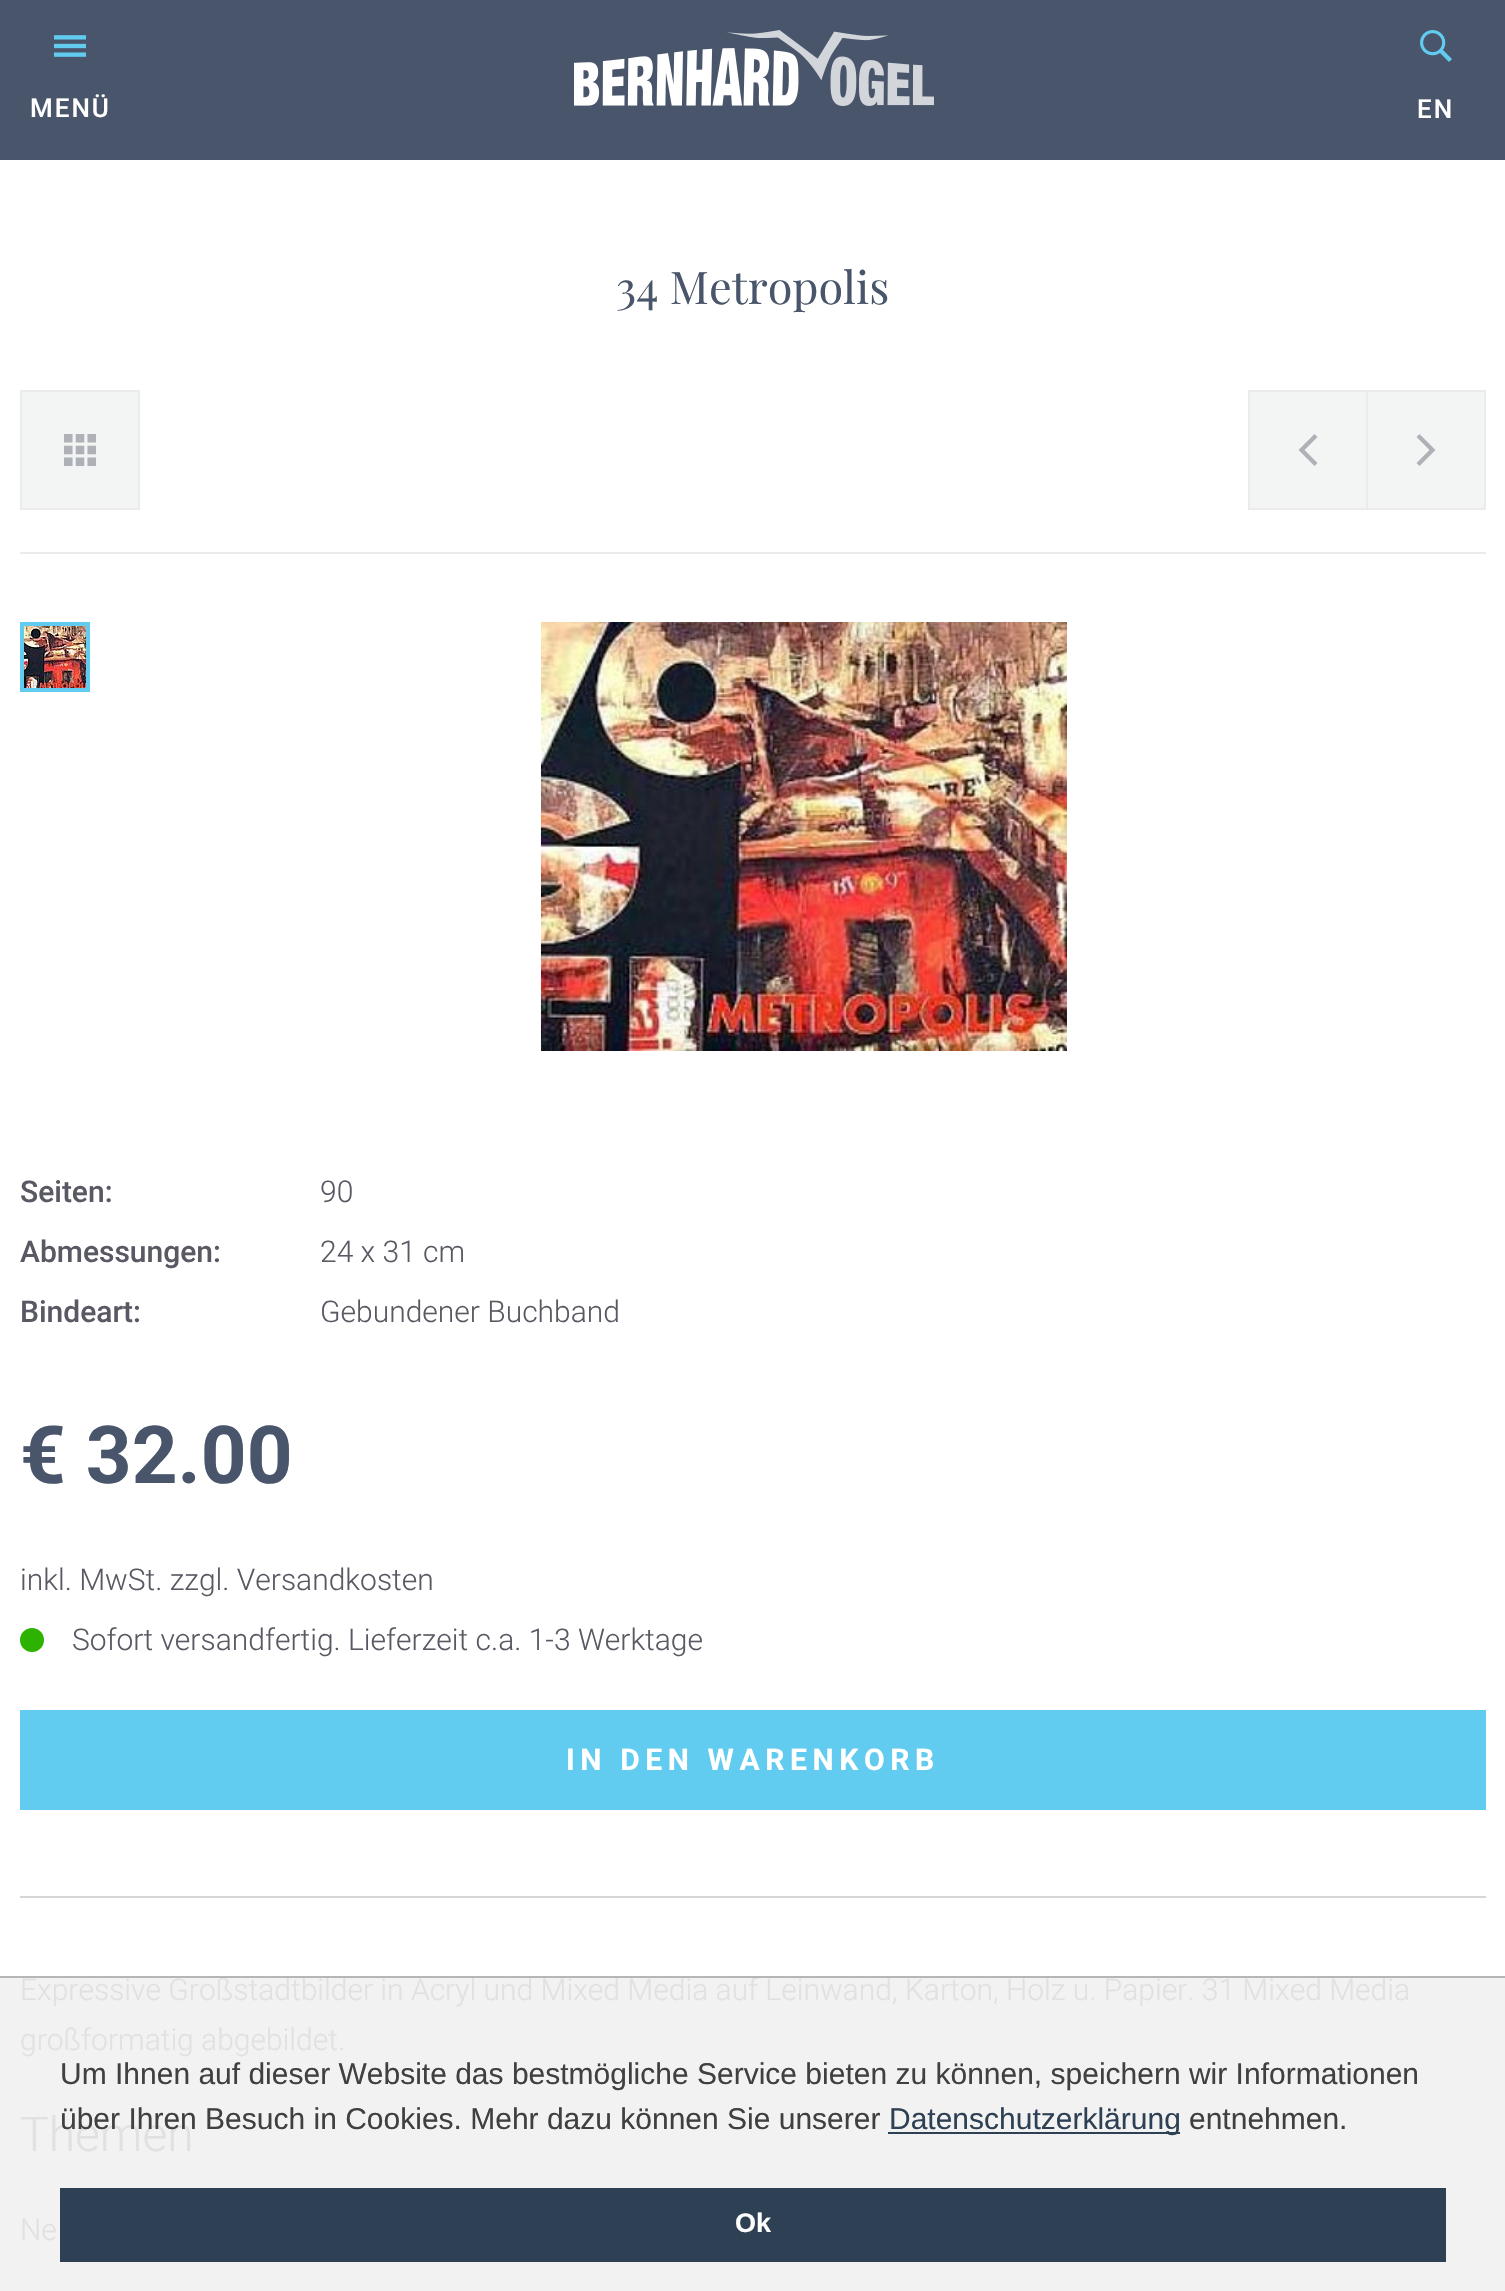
void draw(SkCanvas* c) {
SkPaint p;
p.setAntiAlias(true);
auto F=[&](const char* family, int weight, float size, bool italic = false){SkFontStyle style(weight, SkFontStyle::kNormal_Width,italic ? SkFontStyle::kItalic_Slant : SkFontStyle::kUpright_Slant);SkFont result(fontMgr->matchFamilyStyle(family, style), size);result.setSubpixel(true);return result;};
auto T=[&](const char* s, float x, float y, const SkFont& font){c->drawString(s, x, y, font, p);};
auto L=[&](const char* s, float x, float y, const SkFont& font, const SkPaint& ink, float letter, float word){std::vector<SkGlyphID> glyphs(font.countText(s, strlen(s), SkTextEncoding::kUTF8));std::vector<float> xs(glyphs.size());font.textToGlyphs(s, strlen(s), SkTextEncoding::kUTF8, glyphs);font.getXPos(glyphs, xs, x);float extra = 0;for (size_t i = 0; i < glyphs.size(); i++) {xs[i] += extra;extra += letter + word * (glyphs[i] == font.unicharToGlyph(' '));}c->drawTextBlob(SkTextBlob::MakeFromPosHGlyphs(glyphs, xs, y, font), 0, 0, ink);};
auto R=[&](float x, float y, float w, float h){c->drawRect(SkRect::MakeXYWH(x, y, w, h), p);};
auto I=[&](const char* path, float x, float y, float w, float h){auto image = SkImages::DeferredFromEncodedData(SkData::MakeFromFileName(path));c->drawImageRect(image, SkRect::MakeXYWH(x, y, w, h), SkSamplingOptions());};
auto P=[&](const char* data, bool evenOdd = false){SkPath result = *SkParsePath::FromSVGString(data);if (evenOdd) result.setFillType(SkPathFillType::kEvenOdd);return result;};
c->clear(0xffffffff);
p.setColor(0xff49556b);
R(0,0,1505,160);
I("1.png",574,30,360,76);
I("2.png",1420,30,32,32);
I("3.png",54,35,32,22);
auto f1 = F("Roboto",500,26);
p.setColor(0xffffffff);
L("MENÜ",30,117,f1,p,2,0);
L("EN",1417,118,f1,p,2,0);
auto f2 = F("Playfair Display",400,45);
p.setColor(0xff49556b);
T("34 Metropolis",616,304,f2);
p.setColor(0xffebebeb);
R(20,552,1466,2);
p.setColor(0xfff3f4f4);
c->drawRect(SkRect::MakeXYWH(21,391,118,118),p);
p.setStroke(true);
p.setStrokeWidth(2);
p.setColor(0xffebebeb);
c->drawRect(SkRect::MakeXYWH(21,391,118,118),p);
I("4.png",64,434,32,32);
p.setStroke(false);
p.setColor(0xfff3f4f4);
c->drawRect(SkRect::MakeXYWH(1249,391,118,118),p);
p.setStroke(true);
p.setColor(0xffebebeb);
c->drawRect(SkRect::MakeXYWH(1249,391,118,118),p);
p.setStroke(false);
p.setColor(0xffaeb2b7);
c->drawPath(P("M1314.5 466l3-3l-13-13l13-13l-3-3l-16 16z"),p);
p.setColor(0xfff3f4f4);
c->drawRect(SkRect::MakeXYWH(1367,391,118,118),p);
p.setStroke(true);
p.setColor(0xffebebeb);
c->drawRect(SkRect::MakeXYWH(1367,391,118,118),p);
p.setStroke(false);
p.setColor(0xffaeb2b7);
c->drawPath(P("M1419.5 434l-3 3l13 13l-13 13l3 3l16-16z"),p);
I("5.png",24,626,62,62);
p.setStroke(true);
p.setStrokeWidth(4);
p.setColor(0xff61ccef);
c->drawRect(SkRect::MakeXYWH(22,624,66,66),p);
I("6.png",540,622,527,429);
auto f3 = F("Roboto",500,30);
p.setStroke(false);
p.setColor(0xff595964);
T("Seiten:",20,1202,f3);
auto f4 = F("Roboto",300,30);
T("90",320,1202,f4);
T("Abmessungen:",20,1262,f3);
T("24 x 31 cm",320,1262,f4);
T("Bindeart:",20,1322,f3);
T("Gebundener Buchband",320,1322,f4);
auto f5 = F("Roboto",700,80);
p.setColor(0xff49556b);
T("€ 32.00",20,1483,f5);
p.setColor(0xff595964);
T("inkl. MwSt. zzgl. Versandkosten",20,1590,f4);
p.setColor(0xff2db200);
c->drawCircle(32,1640,12,p);
p.setColor(0xff595964);
T("Sofort versandfertig. Lieferzeit c.a. 1-3 Werktage",72,1650,f4);
p.setColor(0xff61ccef);
R(20,1710,1466,100);
auto f6 = F("Roboto",700,30);
p.setColor(0xffffffff);
L("IN DEN WARENKORB",566,1770,f6,p,5.6,0);
p.setColor(0xffd6d6d6);
R(20,1896,1466,2);
p.setColor(0xfff2f2f2);
R(0,1976,1505,315);
p.setColor(0xffe1e1e2);
T("Expressive Großstadtbilder in Acryl und Mixed Media auf Leinwand, Karton, Holz u. Papier. 31 Mixed Media",20,2000,f4);
T("großformatig abgebildet.",20,2050,f4);
auto f7 = F("Roboto",300,48);
T("Themen",20,2151,f7);
T("Ne",20,2240,f4);
p.setColor(0xe6afafaf);
R(0,1976,1505,2);
auto f8 = F("Liberation Sans",400,30);
p.setColor(0xff404040);
T("Um Ihnen auf dieser Website das bestmögliche Service bieten zu können, speichern wir Informationen",60,2084,f8);
T("über Ihren Besuch in Cookies. Mehr dazu können Sie unserer",60,2129,f8);
p.setColor(0xff2e4154);
R(888,2132,292,2);
T("Datenschutzerklärung",889,2129,f8);
p.setColor(0xff404040);
T("entnehmen.",1189,2129,f8);
p.setColor(0xff2e4154);
R(60,2188,1386,74);
auto f9 = F("Liberation Sans",700,27);
p.setColor(0xffffffff);
T("Ok",735,2232,f9);
}
